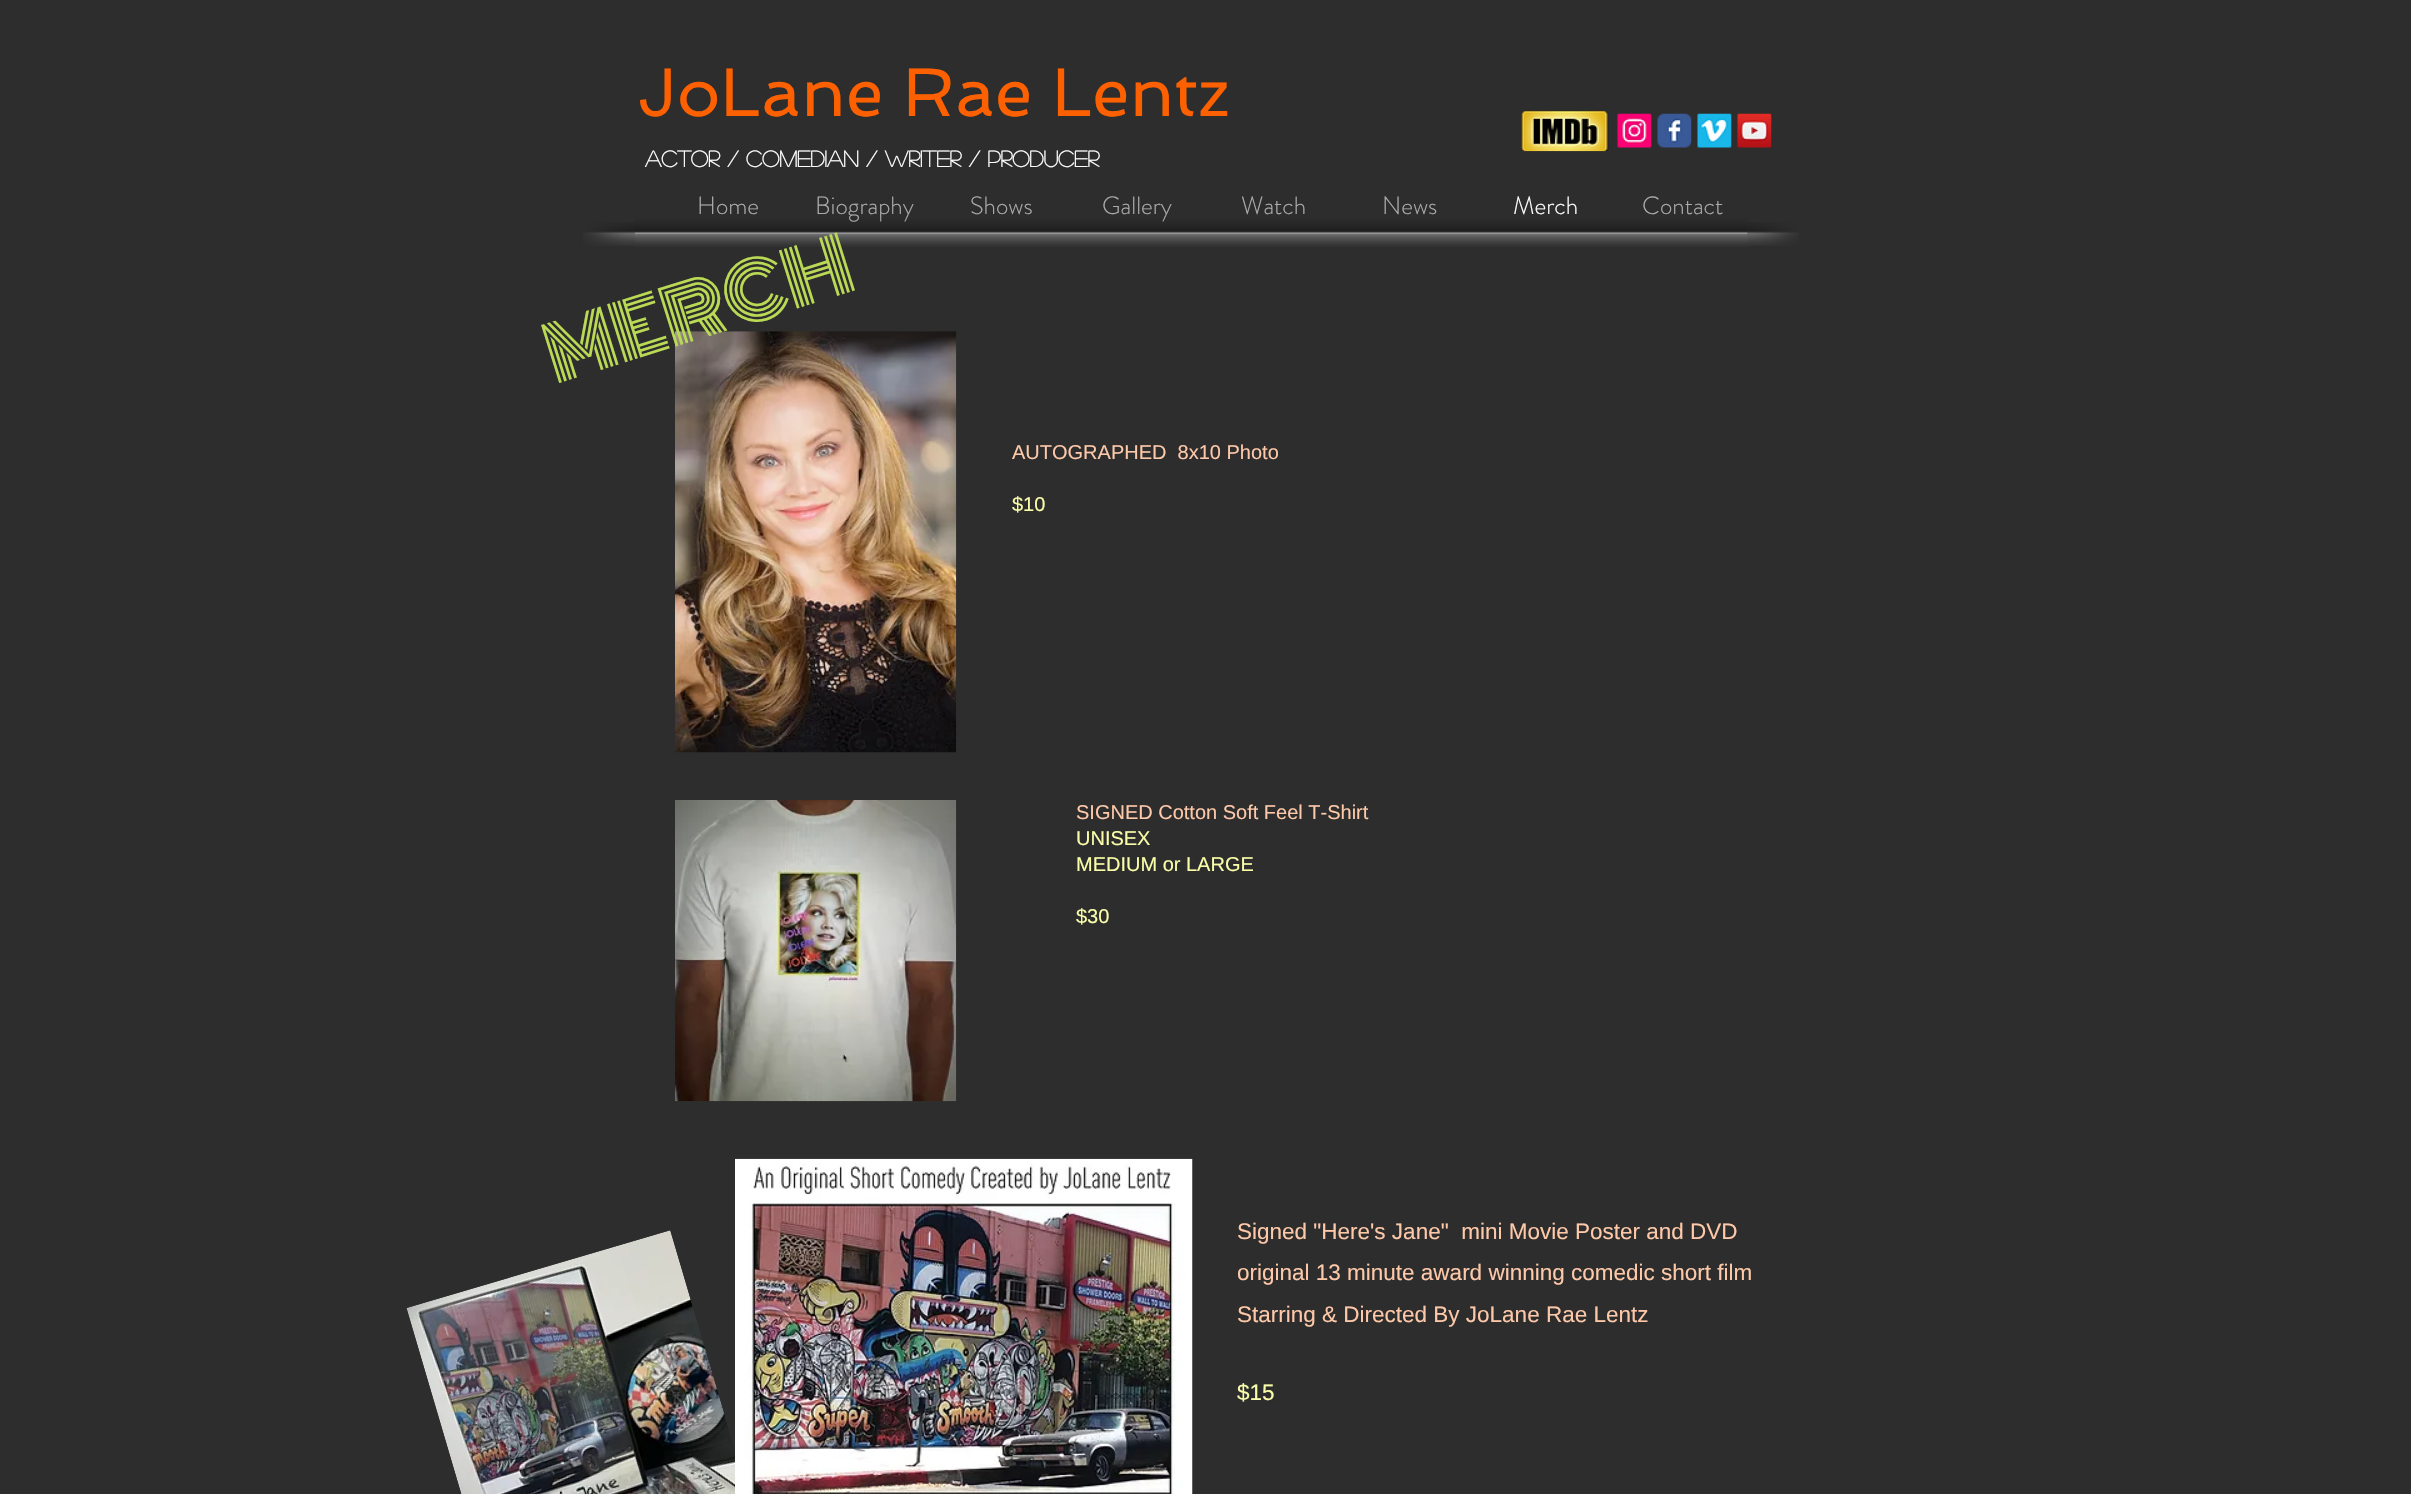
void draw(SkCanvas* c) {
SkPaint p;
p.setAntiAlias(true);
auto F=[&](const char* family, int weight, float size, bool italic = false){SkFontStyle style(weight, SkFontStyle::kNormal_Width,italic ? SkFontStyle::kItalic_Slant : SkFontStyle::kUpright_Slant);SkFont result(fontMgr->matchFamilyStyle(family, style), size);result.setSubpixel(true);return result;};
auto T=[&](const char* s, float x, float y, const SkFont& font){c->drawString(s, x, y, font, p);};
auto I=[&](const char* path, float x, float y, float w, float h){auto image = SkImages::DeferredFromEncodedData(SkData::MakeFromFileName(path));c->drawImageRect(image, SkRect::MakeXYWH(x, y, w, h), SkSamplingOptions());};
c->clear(0xff2d2d2d);
auto f1 = F("Spinnaker",400,68.75);
p.setColor(0xfffc6000);
T("JoLane Rae Lentz",637,116,f1);
I("1.png",1521,110,88,42);
I("2.png",1617,113,35,35);
I("3.png",1657,113,35,35);
I("4.png",1697,113,35,35);
I("5.png",1737,113,35,35);
auto f2 = F("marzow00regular",700,22.5);
p.setColor(0xffffffff);
T("ACTOR / COMEDIAN / Writer / Producer",645,167,f2);
auto f3 = F("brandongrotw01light",300,25);
p.setColor(0xffababab);
T("Home",697,214,f3);
T("Biography",815,214,f3);
T("Shows",970,214,f3);
T("Gallery",1102,214,f3);
T("Watch",1241,214,f3);
T("News",1382,214,f3);
p.setColor(0xffffffff);
T("Merch",1513,214,f3);
p.setColor(0xffababab);
T("Contact",1642,214,f3);
I("6.png",635,217,1113,30);
I("7.png",583,222,52,24);
I("8.png",1747,222,52,24);
I("9.png",675,331,282,422);
auto f4 = F("Monoton",400,75);
p.setColor(0xffbada55);
c->save();
c->rotate(-17.4,556,384);
T("MERCH",556,384,f4);
c->restore();
auto f5 = F("Liberation Sans",400,20);
p.setColor(0xfffec9a9);
T("AUTOGRAPHED  8x10 Photo",1012,459,f5);
p.setColor(0xfffafea9);
T("$10",1012,511,f5);
I("10.png",675,800,282,302);
p.setColor(0xfffec9a9);
T("SIGNED Cotton Soft Feel T-Shirt",1076,819,f5);
p.setColor(0xfffafea9);
T("UNISEX",1076,845,f5);
T("MEDIUM or LARGE",1076,871,f5);
T("$30",1076,923,f5);
I("11.png",406,1230,329,264);
I("12.png",735,1158,458,336);
auto f6 = F("Liberation Sans",400,22.5);
p.setColor(0xfffec9a9);
T("Signed \"Here's Jane\"  mini Movie Poster and DVD",1237,1239,f6);
T("original 13 minute award winning comedic short film",1237,1280,f6);
T("Starring & Directed By JoLane Rae Lentz",1237,1322,f6);
p.setColor(0xfffafea9);
T("$15",1237,1400,f6);
}
